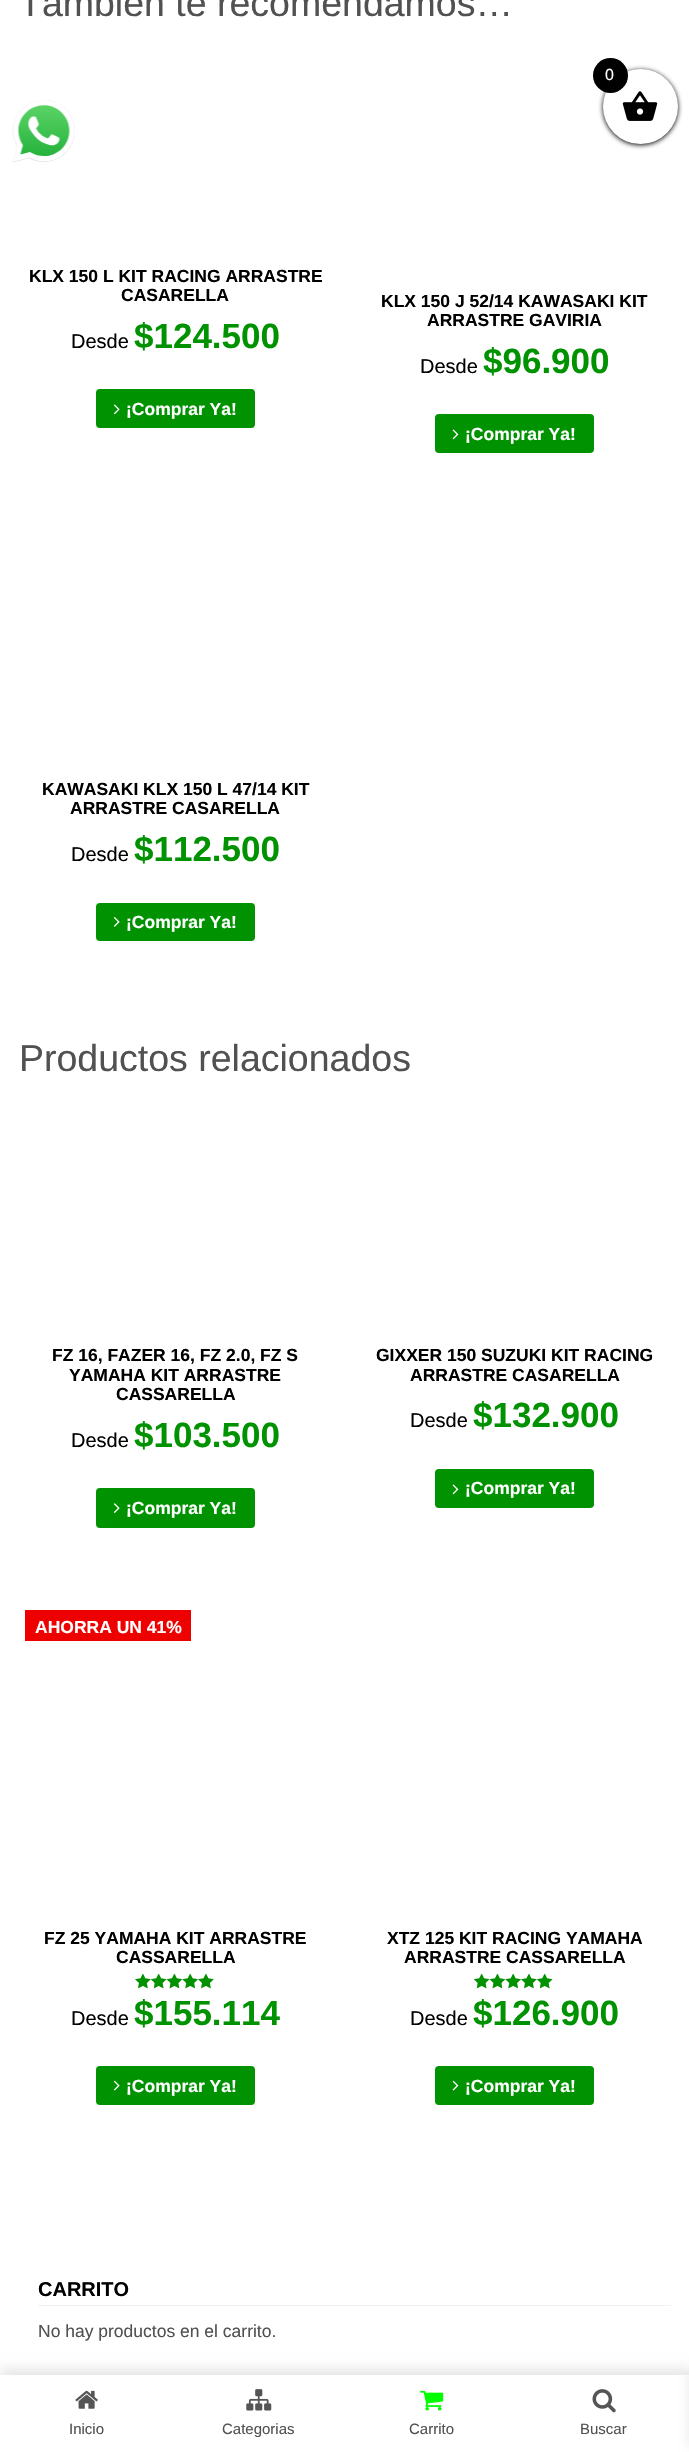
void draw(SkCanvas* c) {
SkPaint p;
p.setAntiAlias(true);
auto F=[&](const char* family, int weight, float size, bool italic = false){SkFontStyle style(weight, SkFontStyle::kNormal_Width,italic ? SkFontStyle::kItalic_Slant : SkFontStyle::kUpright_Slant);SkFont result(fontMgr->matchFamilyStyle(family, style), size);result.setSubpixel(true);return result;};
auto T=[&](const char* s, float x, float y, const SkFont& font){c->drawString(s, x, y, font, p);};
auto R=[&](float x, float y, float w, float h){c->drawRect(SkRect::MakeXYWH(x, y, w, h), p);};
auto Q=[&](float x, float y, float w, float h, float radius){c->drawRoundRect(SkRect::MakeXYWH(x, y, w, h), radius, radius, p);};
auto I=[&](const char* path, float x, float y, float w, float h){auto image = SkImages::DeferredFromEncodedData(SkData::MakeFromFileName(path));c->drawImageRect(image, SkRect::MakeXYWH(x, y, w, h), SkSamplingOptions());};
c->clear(0xffffffff);
auto f1 = F("Liberation Sans",400,37.5);
p.setColor(0xff515151);
T("También te recomendamos…",19,16,f1);
auto f2 = F("Liberation Sans",700,17.5);
p.setColor(0xff000000);
T("KLX 150 L KIT RACING ARRASTRE",29,282,f2);
T("CASARELLA",121,301,f2);
auto f3 = F("Liberation Sans",400,20);
T("Desde",71,348,f3);
auto f4 = F("Liberation Sans",700,35);
p.setColor(0xff009200);
T("$124.500",134,348,f4);
Q(96,389,159,39,4);
I("1.png",113,404,7,11);
p.setColor(0xffffffff);
T("¡Comprar Ya!",126,415,f2);
p.setColor(0xff000000);
T("KLX 150 J 52/14 KAWASAKI KIT",381,307,f2);
T("ARRASTRE GAVIRIA",427,326,f2);
T("Desde",420,373,f3);
p.setColor(0xff009200);
T("$96.900",483,373,f4);
Q(435,414,159,39,4);
I("2.png",452,429,7,11);
p.setColor(0xffffffff);
T("¡Comprar Ya!",465,440,f2);
p.setColor(0xff000000);
T("KAWASAKI KLX 150 L 47/14 KIT",42,795,f2);
T("ARRASTRE CASARELLA",70,814,f2);
T("Desde",71,861,f3);
p.setColor(0xff009200);
T("$112.500",134,861,f4);
Q(96,903,159,38,4);
I("3.png",113,917,7,10);
p.setColor(0xffffffff);
T("¡Comprar Ya!",126,928,f2);
p.setColor(0xff515151);
T("Productos relacionados",19,1071,f1);
p.setColor(0xff000000);
T("FZ 16, FAZER 16, FZ 2.0, FZ S",52,1361,f2);
T("YAMAHA KIT ARRASTRE",69,1381,f2);
T("CASSARELLA",116,1400,f2);
T("Desde",71,1447,f3);
p.setColor(0xff009200);
T("$103.500",134,1447,f4);
Q(96,1488,159,40,4);
I("4.png",113,1503,7,10);
p.setColor(0xffffffff);
T("¡Comprar Ya!",126,1514,f2);
p.setColor(0xff000000);
T("GIXXER 150 SUZUKI KIT RACING",376,1361,f2);
T("ARRASTRE CASARELLA",410,1381,f2);
T("Desde",410,1427,f3);
p.setColor(0xff009200);
T("$132.900",473,1427,f4);
Q(435,1469,159,39,4);
I("2.png",452,1484,7,11);
p.setColor(0xffffffff);
T("¡Comprar Ya!",465,1494,f2);
p.setColor(0xffef0000);
R(25,1610,166,31);
p.setColor(0xffffffff);
T("AHORRA UN 41%",35,1633,f2);
p.setColor(0xff000000);
T("FZ 25 YAMAHA KIT ARRASTRE",44,1944,f2);
T("CASSARELLA",116,1963,f2);
I("5.png",135,1974,79,15);
I("6.png",135,1974,79,15);
T("Desde",71,2025,f3);
p.setColor(0xff009200);
T("$155.114",134,2025,f4);
Q(96,2066,159,39,4);
I("7.png",113,2080,7,11);
p.setColor(0xffffffff);
T("¡Comprar Ya!",126,2092,f2);
p.setColor(0xff000000);
T("XTZ 125 KIT RACING YAMAHA",387,1944,f2);
T("ARRASTRE CASSARELLA",404,1963,f2);
I("8.png",474,1974,79,15);
I("9.png",474,1974,79,15);
T("Desde",410,2025,f3);
p.setColor(0xff009200);
T("$126.900",473,2025,f4);
Q(435,2066,159,39,4);
I("10.png",452,2080,7,11);
p.setColor(0xffffffff);
T("¡Comprar Ya!",465,2092,f2);
p.setColor(0xfff1f1f1);
R(38,2305,633,1);
auto f5 = F("Liberation Sans",700,20);
p.setColor(0xff000000);
T("CARRITO",38,2296,f5);
auto f6 = F("Liberation Sans",400,17.5);
p.setColor(0xff515151);
T("No hay productos en el carrito.",38,2337,f6);
p.setColor(0xff000000);
p.setMaskFilter(SkMaskFilter::MakeBlur(kNormal_SkBlurStyle, 2.5));
c->drawRoundRect(SkRect::MakeXYWH(603,70,75,75),37.5,37.5,p);
p.setMaskFilter(nullptr);
p.setColor(0xffffffff);
c->drawCircle(640.5,106.5,37.5,p);
I("11.png",622,91,36,30);
p.setColor(0xff000000);
c->drawCircle(610.5,75.5,17.5,p);
auto f7 = F("Liberation Sans",400,16);
p.setColor(0xffffffff);
T("0",605,80,f7);
p.setColor(0x1a000000);
p.setMaskFilter(SkMaskFilter::MakeBlur(kNormal_SkBlurStyle, 6));
c->drawRect(SkRect::MakeXYWH(0,2369,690,77),p);
p.setMaskFilter(nullptr);
p.setColor(0xffffffff);
R(0,2375,689,77);
p.setColor(0x1a000000);
p.setMaskFilter(SkMaskFilter::MakeBlur(kNormal_SkBlurStyle, 6));
c->drawRect(SkRect::MakeXYWH(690,2371,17,75),p);
p.setMaskFilter(nullptr);
I("12.png",12,100,63,62);
I("13.png",75,2390,23,19);
auto f8 = F("Liberation Sans",400,15);
p.setColor(0xff515151);
T("Inicio",69,2434,f8);
I("14.png",246,2389,26,22);
T("Categorias",222,2434,f8);
I("15.png",420,2390,24,21);
T("Carrito",409,2434,f8);
I("16.png",592,2389,24,24);
T("Buscar",580,2434,f8);
}
